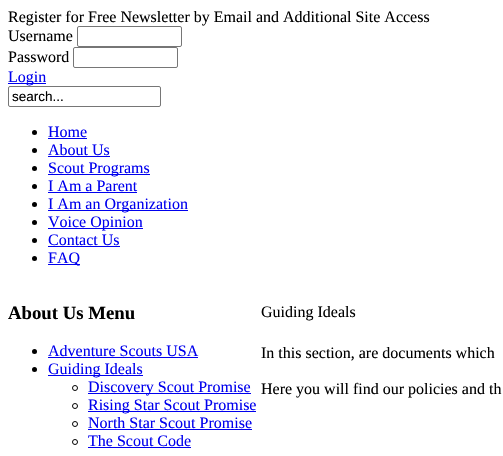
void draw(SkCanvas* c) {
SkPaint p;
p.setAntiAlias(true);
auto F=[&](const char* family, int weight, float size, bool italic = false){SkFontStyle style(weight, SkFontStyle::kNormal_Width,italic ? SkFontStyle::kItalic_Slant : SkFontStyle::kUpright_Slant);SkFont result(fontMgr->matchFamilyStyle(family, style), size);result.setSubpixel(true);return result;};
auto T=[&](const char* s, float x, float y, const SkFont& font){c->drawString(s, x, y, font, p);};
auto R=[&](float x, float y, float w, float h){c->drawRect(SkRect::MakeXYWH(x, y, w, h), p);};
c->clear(0xffffffff);
auto f1 = F("Liberation Serif",400,16);
p.setColor(0xff000000);
T("Register for Free Newsletter by Email and Additional Site Access",8,22,f1);
T("Username",8,41,f1);
p.setStroke(true);
p.setStrokeWidth(1);
p.setColor(0xff767676);
c->drawRoundRect(SkRect::MakeXYWH(77.5,26.5,104,20),1.5,1.5,p);
p.setStroke(false);
p.setColor(0xff000000);
T("Password",8,62,f1);
p.setStroke(true);
p.setColor(0xff767676);
c->drawRoundRect(SkRect::MakeXYWH(73.5,47.5,104,20),1.5,1.5,p);
p.setStroke(false);
p.setColor(0xff0000ee);
R(8,83,38,1);
T("Login",8,82,f1);
p.setStroke(true);
p.setColor(0xff767676);
c->drawRoundRect(SkRect::MakeXYWH(8.5,86.5,152,20),1.5,1.5,p);
auto f2 = F("Liberation Sans",400,13.5);
p.setStroke(false);
p.setColor(0xff000000);
T("search...",12,101,f2);
c->drawCircle(34.5,132.5,2.5,p);
p.setColor(0xff0000ee);
T("Home",48,137,f1);
R(48,138,39,1);
p.setColor(0xff000000);
c->drawCircle(34.5,150.5,2.5,p);
p.setColor(0xff0000ee);
T("About Us",48,155,f1);
R(48,156,62,1);
p.setColor(0xff000000);
c->drawCircle(34.5,168.5,2.5,p);
p.setColor(0xff0000ee);
R(48,174,102,1);
T("Scout Programs",48,173,f1);
p.setColor(0xff000000);
c->drawCircle(34.5,186.5,2.5,p);
p.setColor(0xff0000ee);
T("I Am a Parent",48,191,f1);
R(48,192,89,1);
p.setColor(0xff000000);
c->drawCircle(34.5,204.5,2.5,p);
p.setColor(0xff0000ee);
R(48,210,140,1);
T("I Am an Organization",48,209,f1);
p.setColor(0xff000000);
c->drawCircle(34.5,222.5,2.5,p);
p.setColor(0xff0000ee);
R(48,228,95,1);
T("Voice Opinion",48,227,f1);
p.setColor(0xff000000);
c->drawCircle(34.5,240.5,2.5,p);
p.setColor(0xff0000ee);
T("Contact Us",48,245,f1);
R(48,246,72,1);
p.setColor(0xff000000);
c->drawCircle(34.5,258.5,2.5,p);
p.setColor(0xff0000ee);
R(48,264,32,1);
T("FAQ",48,263,f1);
auto f3 = F("Liberation Serif",700,18.75);
p.setColor(0xff000000);
T("About Us Menu",8,319,f3);
c->drawCircle(34.5,351.5,2.5,p);
p.setColor(0xff0000ee);
T("Adventure Scouts USA",48,356,f1);
R(48,357,150,1);
p.setColor(0xff000000);
c->drawCircle(34.5,369.5,2.5,p);
p.setColor(0xff0000ee);
R(48,375,95,1);
T("Guiding Ideals",48,374,f1);
p.setStroke(true);
p.setColor(0xff000000);
c->drawCircle(75,388,2.5,p);
p.setStroke(false);
p.setColor(0xff0000ee);
R(88,393,163,1);
T("Discovery Scout Promise",88,392,f1);
p.setStroke(true);
p.setColor(0xff000000);
c->drawCircle(75,406,2.5,p);
p.setStroke(false);
p.setColor(0xff0000ee);
R(88,411,168,1);
T("Rising Star Scout Promise",88,410,f1);
p.setStroke(true);
p.setColor(0xff000000);
c->drawCircle(75,424,2.5,p);
p.setStroke(false);
p.setColor(0xff0000ee);
T("North Star Scout Promise",88,428,f1);
R(88,429,164,1);
p.setStroke(true);
p.setColor(0xff000000);
c->drawCircle(75,442,2.5,p);
p.setStroke(false);
p.setColor(0xff0000ee);
T("The Scout Code",88,446,f1);
R(88,447,103,1);
p.setColor(0xff000000);
T("Guiding Ideals",261,317,f1);
T("In this section, are documents which",261,358,f1);
T("Here you will find our policies and th",261,394,f1);
}
